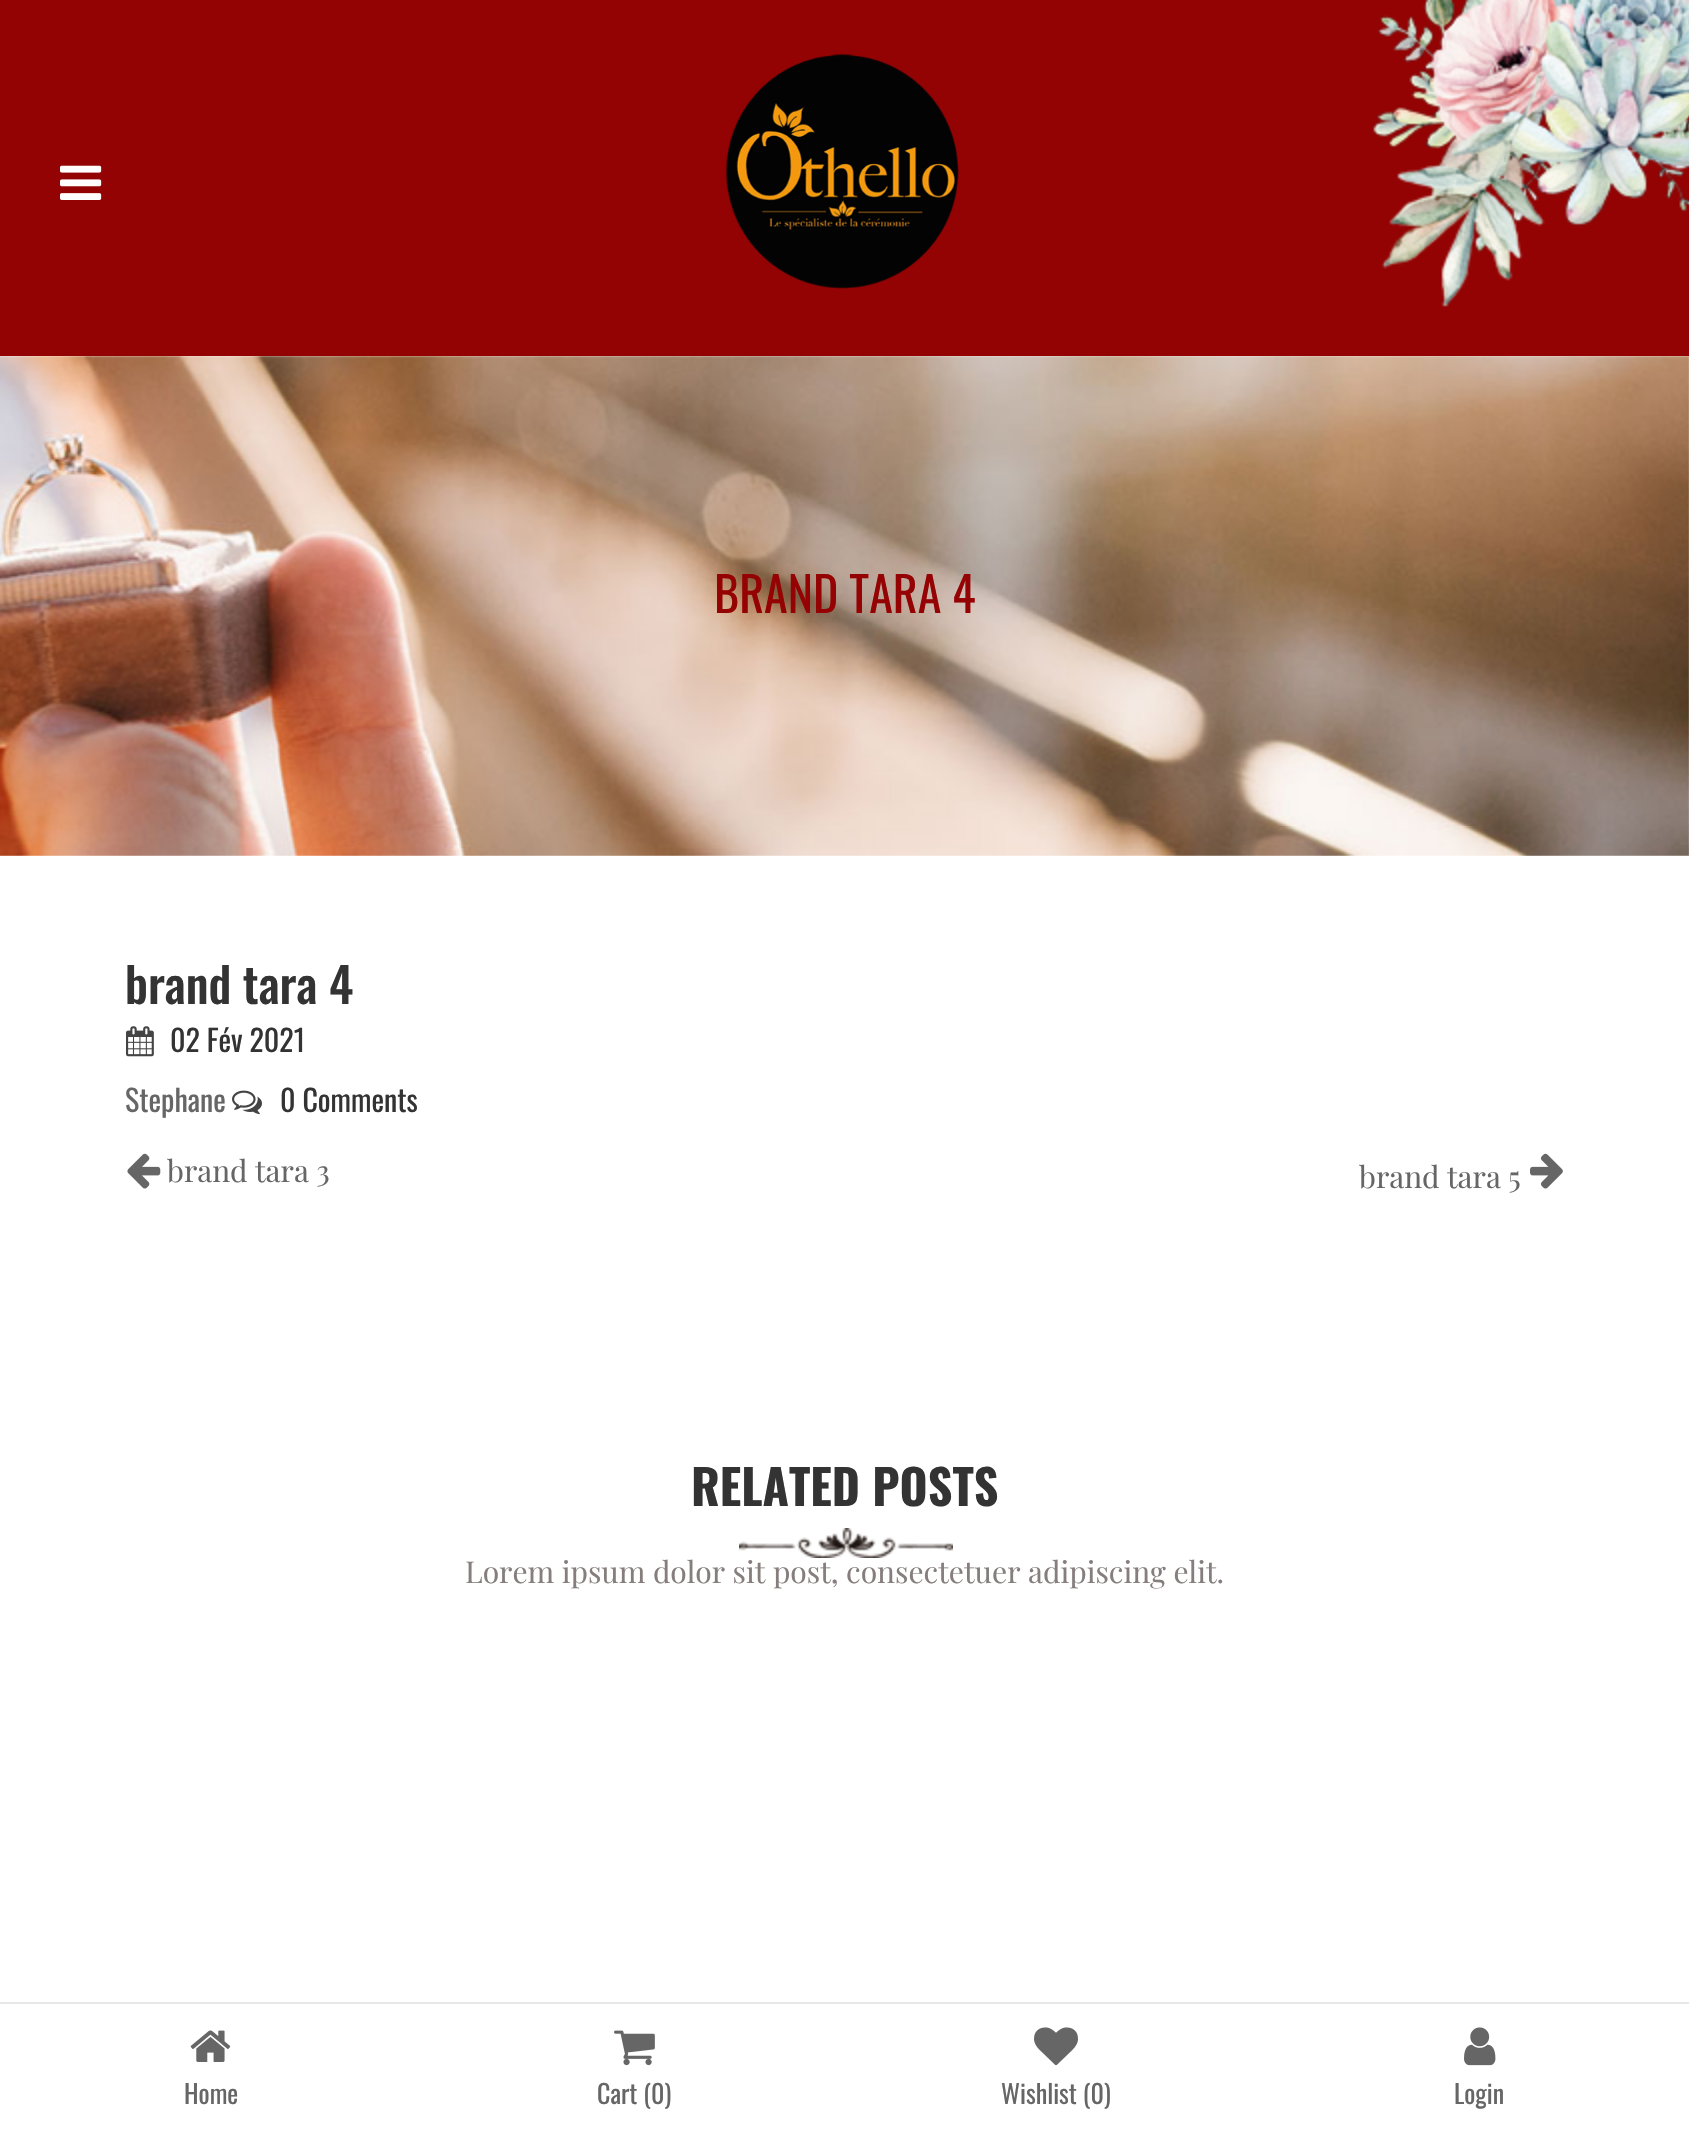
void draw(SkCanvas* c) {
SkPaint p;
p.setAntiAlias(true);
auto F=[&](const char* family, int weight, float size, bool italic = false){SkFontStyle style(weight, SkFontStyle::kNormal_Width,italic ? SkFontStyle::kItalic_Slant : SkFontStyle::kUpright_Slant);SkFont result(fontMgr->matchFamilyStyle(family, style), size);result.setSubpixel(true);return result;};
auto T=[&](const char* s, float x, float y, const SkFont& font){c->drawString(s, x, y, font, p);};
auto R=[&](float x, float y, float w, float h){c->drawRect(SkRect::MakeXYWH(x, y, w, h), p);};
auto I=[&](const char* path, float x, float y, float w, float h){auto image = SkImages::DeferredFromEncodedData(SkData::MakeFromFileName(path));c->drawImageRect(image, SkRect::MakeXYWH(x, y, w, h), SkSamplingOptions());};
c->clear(0xffffffff);
p.setColor(0xff930303);
R(0,0,1689,356);
I("1.png",60,165,42,35);
I("2.png",725,54,234,235);
I("3.png",1373,0,316,307);
I("4.png",0,356,1689,500);
auto f1 = F("Oswald",400,48);
p.setColor(0xff940203);
T("BRAND TARA 4",714,613,f1);
auto f2 = F("Oswald",500,48);
p.setColor(0xff333333);
T("brand tara 4",125,1004,f2);
I("5.png",126,1026,28,31);
auto f3 = F("Oswald",400,30);
T("02 Fév 2021",170,1052,f3);
p.setColor(0xff666666);
T("Stephane",125,1112,f3);
I("6.png",232,1090,30,25);
p.setColor(0xff333333);
T("0 Comments",280,1112,f3);
I("7.png",127,1153,34,36);
auto f4 = F("Playfair Display",400,30);
p.setColor(0xff666666);
T("brand tara 3",167,1182,f4);
T("brand tara 5",1359,1188,f4);
I("8.png",1530,1153,33,36);
auto f5 = F("Oswald",700,48);
p.setColor(0xff333333);
T("RELATED POSTS",691,1506,f5);
I("9.png",739,1528,214,30);
p.setColor(0xff857e7c);
T("Lorem ipsum dolor sit post, consectetuer adipiscing elit.",465,1583,f4);
p.setColor(0xffe8e8e8);
R(0,2002,1689,2);
I("10.png",190,2030,41,32);
auto f6 = F("Oswald",400,26);
p.setColor(0xff666666);
T("Home",184,2104,f6);
I("11.png",614,2030,41,36);
T("Cart (0)",597,2104,f6);
I("12.png",1034,2027,44,39);
T("Wishlist (0)",1001,2104,f6);
I("13.png",1464,2027,32,39);
T("Login",1454,2104,f6);
}
